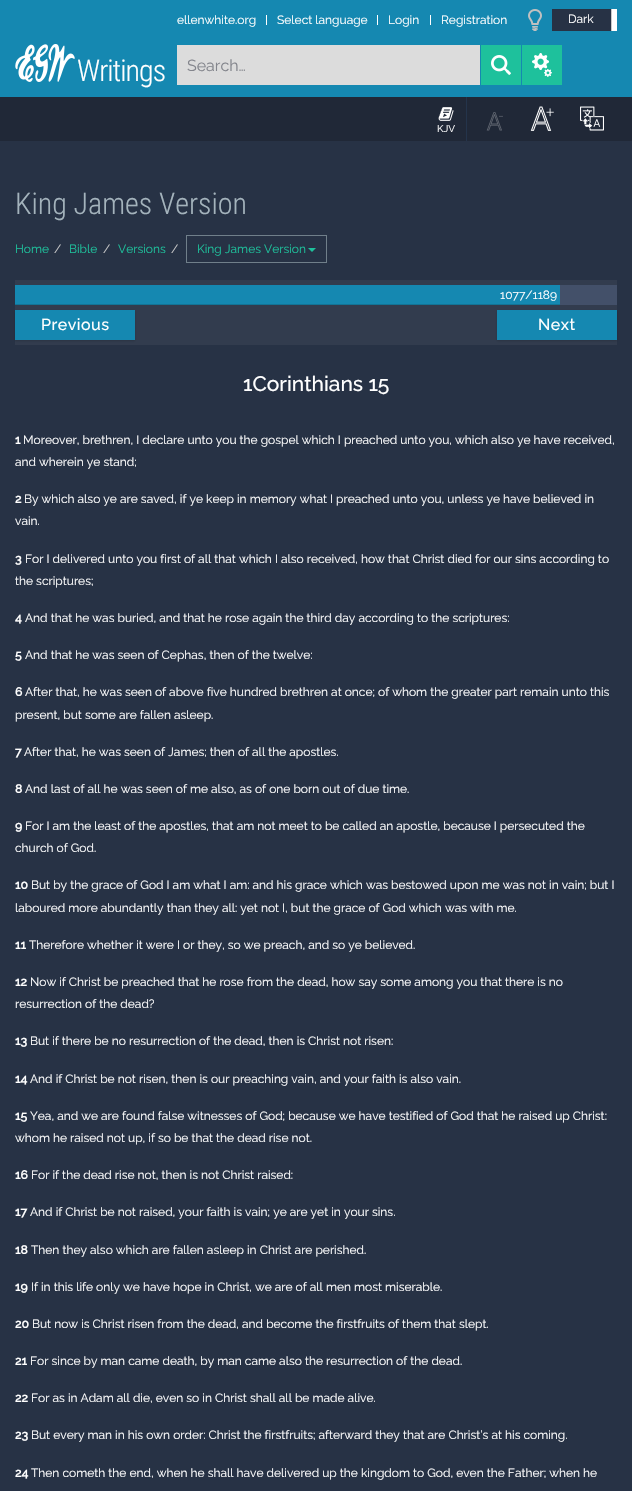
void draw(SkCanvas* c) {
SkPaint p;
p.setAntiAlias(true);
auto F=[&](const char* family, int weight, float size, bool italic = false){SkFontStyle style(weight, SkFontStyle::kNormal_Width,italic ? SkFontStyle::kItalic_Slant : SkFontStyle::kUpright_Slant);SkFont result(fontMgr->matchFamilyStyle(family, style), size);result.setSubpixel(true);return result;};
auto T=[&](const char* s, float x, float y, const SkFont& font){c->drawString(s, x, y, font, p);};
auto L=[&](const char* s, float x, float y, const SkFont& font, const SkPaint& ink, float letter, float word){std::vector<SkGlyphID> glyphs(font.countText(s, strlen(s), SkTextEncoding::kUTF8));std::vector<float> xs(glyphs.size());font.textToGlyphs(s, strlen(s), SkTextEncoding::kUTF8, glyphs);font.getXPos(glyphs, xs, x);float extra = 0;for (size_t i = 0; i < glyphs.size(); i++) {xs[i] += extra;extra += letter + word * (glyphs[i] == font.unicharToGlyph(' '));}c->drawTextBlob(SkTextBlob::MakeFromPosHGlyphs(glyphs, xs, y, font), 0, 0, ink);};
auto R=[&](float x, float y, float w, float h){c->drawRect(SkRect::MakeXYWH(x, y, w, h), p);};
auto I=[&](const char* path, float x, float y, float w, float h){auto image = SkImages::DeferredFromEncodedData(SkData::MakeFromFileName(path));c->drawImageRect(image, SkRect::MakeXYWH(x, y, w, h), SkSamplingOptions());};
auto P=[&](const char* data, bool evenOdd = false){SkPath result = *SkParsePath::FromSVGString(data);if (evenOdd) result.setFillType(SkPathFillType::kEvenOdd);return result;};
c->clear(0xff273245);
p.setColor(0xff1588b1);
R(0,0,632,97);
I("1.png",15,44,60,38);
auto f1 = F("Roboto Condensed",300,30);
p.setColor(0xffffffff);
L("Writings",77,81,f1,p,-1,0);
auto f2 = F("Raleway",400,12);
T("ellenwhite.org",177,24,f2);
R(266,15,1,10);
T("Select language",277,24,f2);
R(377,15,1,10);
T("Login",388,24,f2);
R(430,15,1,10);
T("Registration",441,24,f2);
I("2.png",528,9,14,22);
p.setColor(0xff273245);
R(552,9,59,22);
p.setColor(0xffffffff);
T("Dark",568,23,f2);
R(612,9,5,22);
p.setColor(0xffc8c8c8);
R(611,9,1,22);
p.setColor(0xffdcdcdc);
R(177,45,303,40);
auto f3 = F("Raleway",400,16);
p.setColor(0xff83858c);
T("Search…",187,71,f3);
p.setColor(0xff1ec19c);
R(481,45,40,40);
I("3.png",491,55,20,20);
R(522,45,40,40);
I("4.png",532,53,20,24);
p.setColor(0xff202837);
R(0,97,632,44);
I("5.png",438,107,16,14);
auto f4 = F("Raleway",400,10);
p.setColor(0xffffffff);
T("KJV",437,132,f4);
p.setColor(0xff24344b);
R(466,97,1,44);
I("6.png",486,112,17,19);
I("7.png",530,106,24,25);
I("8.png",580,106,24,25);
p.setColor(0xffa4b3bc);
T("King James Version",15,214,f1);
p.setColor(0xff1ec19c);
T("Home",15,253,f2);
p.setColor(0xffcccccc);
T("/",54,253,f2);
p.setColor(0xff1ec19c);
T("Bible",69,253,f2);
p.setColor(0xffcccccc);
T("/",103,253,f2);
p.setColor(0xff1ec19c);
T("Versions",118,253,f2);
p.setColor(0xffcccccc);
T("/",171,253,f2);
p.setStroke(true);
p.setStrokeWidth(1);
p.setColor(0xff707f8a);
c->drawRect(SkRect::MakeXYWH(186.5,235.5,140,27),p);
p.setStroke(false);
p.setColor(0xff1ec19c);
T("King James Version",197,253,f2);
c->drawPath(P("M308 248h8l-4 4z"),p);
p.setColor(0xff323c4e);
R(15,280,602,65);
p.setColor(0xff435069);
R(560,285,57,20);
p.setColor(0xff1588b1);
R(15,285,545,19);
p.setColor(0xff127496);
R(15,304,545,1);
p.setColor(0xffffffff);
T("1077/1189",500,299,f2);
p.setColor(0x26000000);
p.setMaskFilter(SkMaskFilter::MakeBlur(kNormal_SkBlurStyle, 1));
c->drawRect(SkRect::MakeXYWH(15,311,120,30),p);
p.setMaskFilter(nullptr);
p.setColor(0xff1588b1);
R(15,310,120,30);
auto f5 = F("Raleway",500,16);
p.setColor(0xffffffff);
L("Previous",41,330,f5,p,.5,0);
p.setColor(0x26000000);
p.setMaskFilter(SkMaskFilter::MakeBlur(kNormal_SkBlurStyle, 1));
c->drawRect(SkRect::MakeXYWH(497,311,120,30),p);
p.setMaskFilter(nullptr);
p.setColor(0xff1588b1);
R(497,310,120,30);
p.setColor(0xffffffff);
L("Next",538,330,f5,p,.5,0);
auto f6 = F("Raleway",500,21);
T("1Corinthians 15",243,391,f6);
auto f7 = F("Raleway",700,12);
T("1",15,444,f7);
T("Moreover, brethren, I declare unto you the gospel which I preached unto you, which also ye have received,",23,444,f2);
T("and wherein ye stand;",15,466,f2);
T("2",15,503,f7);
T("By which also ye are saved, if ye keep in memory what I preached unto you, unless ye have believed in",24,503,f2);
T("vain.",15,525,f2);
T("3",15,563,f7);
T("For I delivered unto you first of all that which I also received, how that Christ died for our sins according to",25,563,f2);
T("the scriptures;",15,585,f2);
T("4",15,622,f7);
T("And that he was buried, and that he rose again the third day according to the scriptures:",25,622,f2);
T("5",15,659,f7);
T("And that he was seen of Cephas, then of the twelve:",25,659,f2);
T("6",15,696,f7);
T("After that, he was seen of above five hundred brethren at once; of whom the greater part remain unto this",25,696,f2);
T("present, but some are fallen asleep.",15,719,f2);
T("7",15,756,f7);
T("After that, he was seen of James; then of all the apostles.",24,756,f2);
T("8",15,793,f7);
T("And last of all he was seen of me also, as of one born out of due time.",25,793,f2);
T("9",15,830,f7);
T("For I am the least of the apostles, that am not meet to be called an apostle, because I persecuted the",25,830,f2);
T("church of God.",15,852,f2);
T("10",15,889,f7);
T("But by the grace of God I am what I am: and his grace which was bestowed upon me was not in vain; but I",31,889,f2);
T("laboured more abundantly than they all: yet not I, but the grace of God which was with me.",15,912,f2);
T("11",15,949,f7);
T("Therefore whether it were I or they, so we preach, and so ye believed.",29,949,f2);
T("12",15,986,f7);
T("Now if Christ be preached that he rose from the dead, how say some among you that there is no",30,986,f2);
T("resurrection of the dead?",15,1008,f2);
T("13",15,1045,f7);
T("But if there be no resurrection of the dead, then is Christ not risen:",30,1045,f2);
T("14",15,1083,f7);
T("And if Christ be not risen, then is our preaching vain, and your faith is also vain.",30,1083,f2);
T("15",15,1120,f7);
T("Yea, and we are found false witnesses of God; because we have testified of God that he raised up Christ:",30,1120,f2);
T("whom he raised not up, if so be that the dead rise not.",15,1142,f2);
T("16",15,1179,f7);
T("For if the dead rise not, then is not Christ raised:",31,1179,f2);
T("17",15,1216,f7);
T("And if Christ be not raised, your faith is vain; ye are yet in your sins.",30,1216,f2);
T("18",15,1254,f7);
T("Then they also which are fallen asleep in Christ are perished.",31,1254,f2);
T("19",15,1291,f7);
T("If in this life only we have hope in Christ, we are of all men most miserable.",31,1291,f2);
T("20",15,1328,f7);
T("But now is Christ risen from the dead, and become the firstfruits of them that slept.",32,1328,f2);
T("21",15,1365,f7);
T("For since by man came death, by man came also the resurrection of the dead.",30,1365,f2);
T("22",15,1402,f7);
T("For as in Adam all die, even so in Christ shall all be made alive.",31,1402,f2);
T("23",15,1439,f7);
T("But every man in his own order: Christ the firstfruits; afterward they that are Christ’s at his coming.",31,1439,f2);
T("24",15,1477,f7);
T("Then cometh the end, when he shall have delivered up the kingdom to God, even the Father; when he",31,1477,f2);
}
